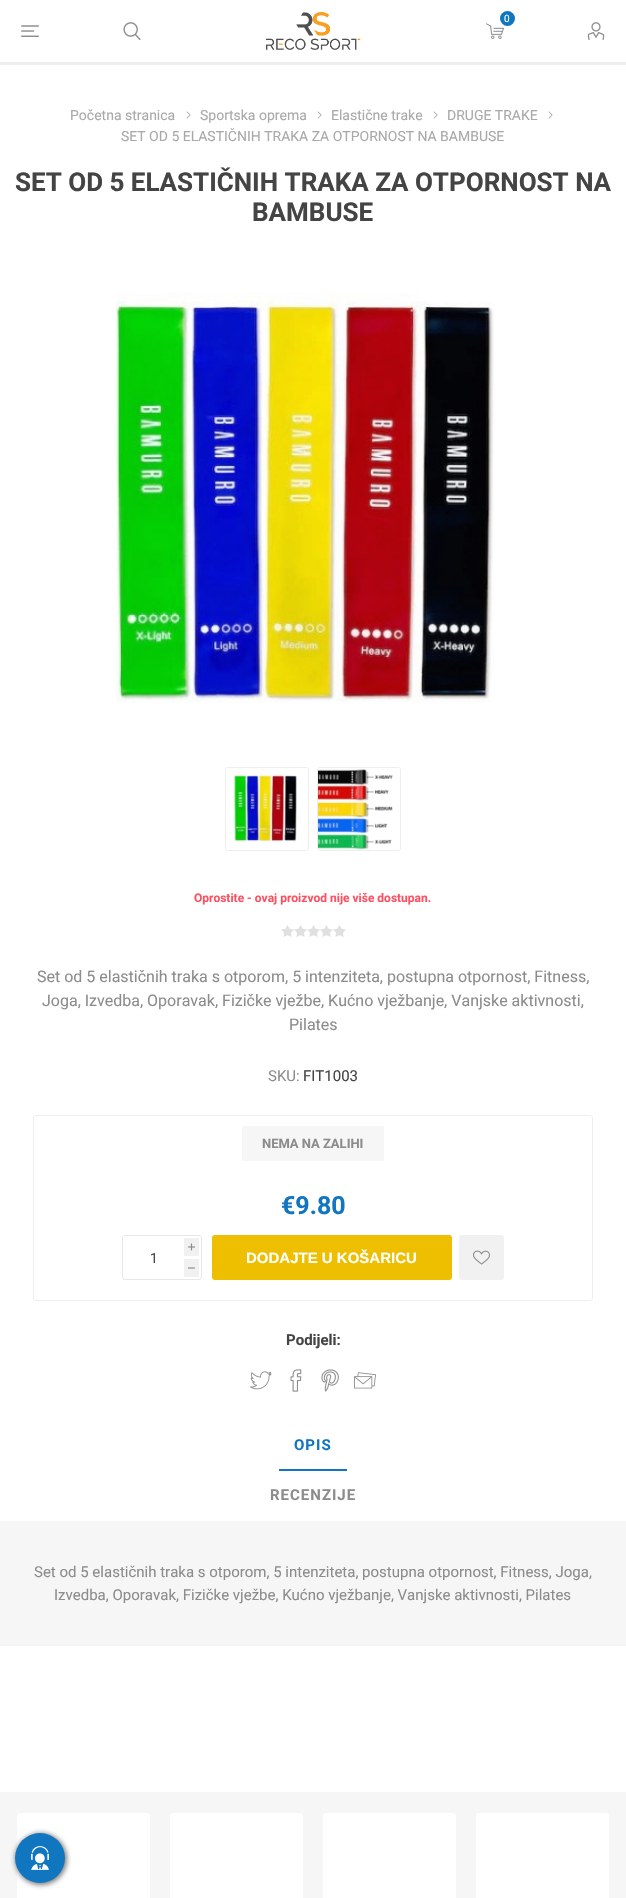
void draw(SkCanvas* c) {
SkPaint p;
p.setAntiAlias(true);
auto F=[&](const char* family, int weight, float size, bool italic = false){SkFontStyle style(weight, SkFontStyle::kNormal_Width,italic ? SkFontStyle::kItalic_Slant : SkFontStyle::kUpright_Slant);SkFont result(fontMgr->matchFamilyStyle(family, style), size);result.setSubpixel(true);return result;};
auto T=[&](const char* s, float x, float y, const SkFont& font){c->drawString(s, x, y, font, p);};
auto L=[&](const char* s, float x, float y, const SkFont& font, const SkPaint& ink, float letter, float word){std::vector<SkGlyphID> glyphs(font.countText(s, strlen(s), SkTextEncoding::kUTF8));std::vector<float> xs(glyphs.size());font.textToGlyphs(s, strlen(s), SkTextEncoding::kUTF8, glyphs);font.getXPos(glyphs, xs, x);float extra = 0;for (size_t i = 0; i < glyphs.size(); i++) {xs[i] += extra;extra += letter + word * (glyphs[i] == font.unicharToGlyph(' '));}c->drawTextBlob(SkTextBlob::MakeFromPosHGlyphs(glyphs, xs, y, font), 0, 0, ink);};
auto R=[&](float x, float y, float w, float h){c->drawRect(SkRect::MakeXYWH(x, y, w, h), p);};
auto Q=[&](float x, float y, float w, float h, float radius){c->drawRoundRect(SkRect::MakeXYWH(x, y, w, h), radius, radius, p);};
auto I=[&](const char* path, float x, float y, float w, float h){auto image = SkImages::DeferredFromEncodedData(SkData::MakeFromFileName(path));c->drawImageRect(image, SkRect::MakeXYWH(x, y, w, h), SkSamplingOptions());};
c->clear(0xffffffff);
p.setColor(0xffeeeeee);
R(0,62,626,3);
I("1.png",266,12,95,38);
I("2.png",486,23,18,16);
p.setColor(0xff1076c0);
c->drawCircle(507.5,18.5,7.5,p);
auto f1 = F("Roboto",400,10);
p.setColor(0xffffffff);
T("0",504,22,f1);
I("3.png",21,25,18,12);
I("4.png",123,22,18,19);
I("5.png",587,22,18,18);
auto f2 = F("Roboto",400,14);
p.setColor(0xffa9a9a9);
T("Početna stranica",70,120,f2);
I("6.png",186,111,5,8);
T("Sportska oprema",200,120,f2);
I("6.png",317,111,5,8);
T("Elastične trake",331,120,f2);
I("6.png",433,111,5,8);
T("DRUGE TRAKE",447,120,f2);
I("6.png",548,111,5,8);
T("SET OD 5 ELASTIČNIH TRAKA ZA OTPORNOST NA BAMBUSE",121,141,f2);
auto f3 = F("Roboto",700,26);
p.setColor(0xff444444);
T("SET OD 5 ELASTIČNIH TRAKA ZA OTPORNOST NA",15,191,f3);
T("BAMBUSE",252,221,f3);
I("7.png",115,292,379,411);
p.setStroke(true);
p.setStrokeWidth(1);
p.setColor(0xffeeeeee);
c->drawRoundRect(SkRect::MakeXYWH(225.5,767.5,83,83),2.5,2.5,p);
I("8.png",226,768,82,82);
c->drawRoundRect(SkRect::MakeXYWH(317.5,767.5,83,83),2.5,2.5,p);
I("9.png",318,768,82,82);
auto f4 = F("Roboto",700,12);
p.setStroke(false);
p.setColor(0xffff4f60);
T("Oprostite - ovaj proizvod nije više dostupan.",194,902,f4);
I("10.png",281,925,65,12);
auto f5 = F("Roboto",400,16);
p.setColor(0xff8c8c8c);
T("Set od 5 elastičnih traka s otporom, 5 intenziteta, postupna otpornost, Fitness,",37,982,f5);
T("Joga, Izvedba, Oporavak, Fizičke vježbe, Kućno vježbanje, Vanjske aktivnosti,",42,1006,f5);
T("Pilates",289,1030,f5);
auto f6 = F("Roboto",400,15);
T("SKU:",268,1081,f6);
p.setColor(0xff444444);
T("FIT1003",303,1081,f6);
p.setStroke(true);
p.setColor(0xffeeeeee);
c->drawRoundRect(SkRect::MakeXYWH(33.5,1115.5,559,185),2.5,2.5,p);
p.setStroke(false);
p.setColor(0xfff6f6f6);
Q(242,1126,142,35,2);
auto f7 = F("Roboto",700,13);
p.setColor(0xff8c8c8c);
T("NEMA NA ZALIHI",262,1148,f7);
auto f8 = F("Roboto",700,25);
p.setColor(0xff1076c0);
T("€9.80",281,1214,f8);
p.setStroke(true);
p.setColor(0xffe7e7e7);
c->drawRoundRect(SkRect::MakeXYWH(122.5,1235.5,79,44),2.5,2.5,p);
p.setStroke(false);
p.setColor(0xfff1f1f1);
R(184,1238,15,18);
auto f9 = F("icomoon",400,7);
p.setColor(0xff8c8c8c);
T("i",188,1250,f9);
p.setColor(0xff444444);
T("1",150,1263,f2);
p.setColor(0xfff1f1f1);
R(184,1259,15,18);
p.setColor(0xff8c8c8c);
T("h",188,1271,f9);
p.setColor(0xffeebe00);
Q(212,1235,240,45,3);
auto f10 = F("Liberation Sans",700,15);
p.setColor(0xffffffff);
T("DODAJTE U KOŠARICU",246,1263,f10);
p.setColor(0xfff1f1f1);
Q(459,1235,45,45,3);
I("11.png",473,1250,17,15);
auto f11 = F("Roboto",700,15);
p.setColor(0xff444444);
T("Podijeli:",286,1345,f11);
I("12.png",250,1371,22,19);
I("13.png",290,1369,12,23);
I("14.png",321,1369,18,23);
I("15.png",354,1372,22,17);
p.setColor(0xff1076c0);
R(279,1469,68,2);
L("OPIS",294,1450,f11,p,1,0);
p.setColor(0xff8c8c8c);
L("RECENZIJE",270,1500,f11,p,1,0);
p.setColor(0xfff6f6f6);
R(0,1521,626,125);
p.setColor(0xff8c8c8c);
T("Set od 5 elastičnih traka s otporom, 5 intenziteta, postupna otpornost, Fitness, Joga,",34,1577,f6);
T("Izvedba, Oporavak, Fizičke vježbe, Kućno vježbanje, Vanjske aktivnosti, Pilates",54,1600,f6);
p.setColor(0xfff6f6f6);
R(0,1792,626,106);
p.setColor(0xffffffff);
Q(17,1813,133,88,3);
Q(170,1813,133,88,3);
Q(323,1813,133,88,3);
Q(476,1813,133,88,3);
p.setColor(0x80000000);
p.setMaskFilter(SkMaskFilter::MakeBlur(kNormal_SkBlurStyle, 2.5));
c->drawRoundRect(SkRect::MakeXYWH(15,1833,52,52),26,26,p);
p.setMaskFilter(nullptr);
p.setColor(0xff1076c0);
c->drawCircle(40,1858,25,p);
I("16.png",31,1846,18,24);
}
